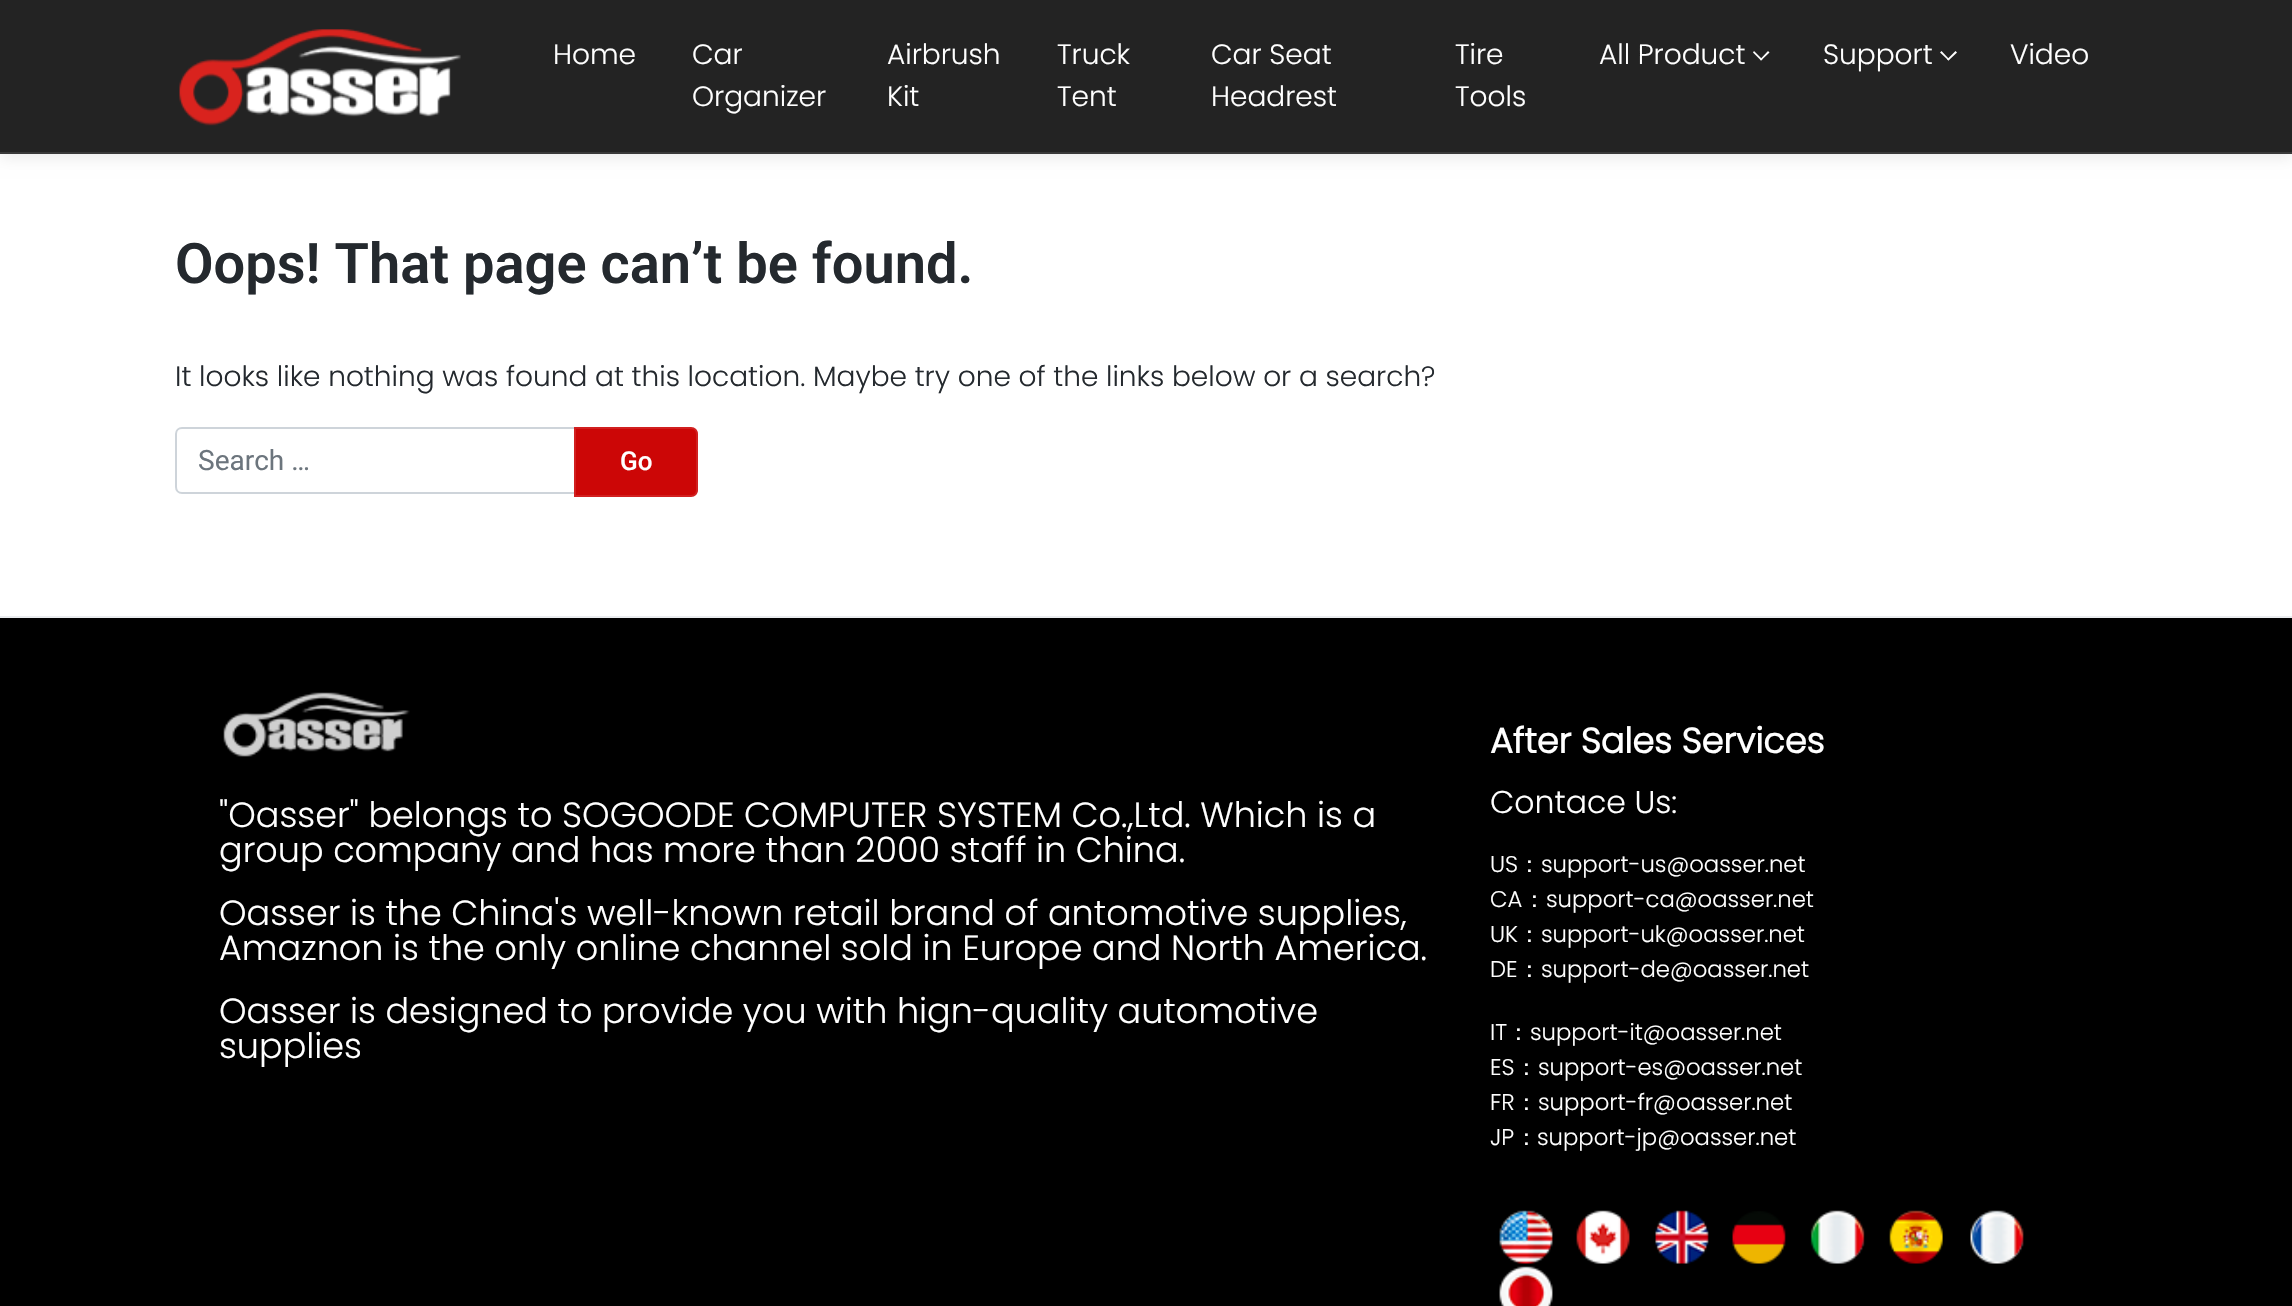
void draw(SkCanvas* c) {
SkPaint p;
p.setAntiAlias(true);
auto F=[&](const char* family, int weight, float size, bool italic = false){SkFontStyle style(weight, SkFontStyle::kNormal_Width,italic ? SkFontStyle::kItalic_Slant : SkFontStyle::kUpright_Slant);SkFont result(fontMgr->matchFamilyStyle(family, style), size);result.setSubpixel(true);return result;};
auto T=[&](const char* s, float x, float y, const SkFont& font){c->drawString(s, x, y, font, p);};
auto R=[&](float x, float y, float w, float h){c->drawRect(SkRect::MakeXYWH(x, y, w, h), p);};
auto I=[&](const char* path, float x, float y, float w, float h){auto image = SkImages::DeferredFromEncodedData(SkData::MakeFromFileName(path));c->drawImageRect(image, SkRect::MakeXYWH(x, y, w, h), SkSamplingOptions());};
auto P=[&](const char* data, bool evenOdd = false){SkPath result = *SkParsePath::FromSVGString(data);if (evenOdd) result.setFillType(SkPathFillType::kEvenOdd);return result;};
c->clear(0xffffffff);
p.setColor(0x14000000);
p.setMaskFilter(SkMaskFilter::MakeBlur(kNormal_SkBlurStyle, 7));
c->drawRect(SkRect::MakeXYWH(0,4,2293,154),p);
p.setMaskFilter(nullptr);
p.setColor(0xff232323);
R(0,0,2292,152);
p.setColor(0xff393939);
R(0,152,2292,2);
I("1.png",179,29,282,97);
auto f1 = F("Poppins",300,28);
p.setColor(0xffffffff);
T("Home",553,64,f1);
T("Car",692,64,f1);
T("Organizer",692,106,f1);
T("Airbrush",887,64,f1);
T("Kit",887,106,f1);
T("Truck",1057,64,f1);
T("Tent",1057,106,f1);
T("Car Seat",1211,64,f1);
T("Headrest",1211,106,f1);
T("Tire",1455,64,f1);
T("Tools",1455,106,f1);
T("All Product",1599,64,f1);
c->drawPath(P("M1768 51l1.5 1.5l-8.5 8l-1-1z"),p);
c->drawPath(P("M1754 51l8.5 8.5l-1.5 1l-8-8z"),p);
T("Support",1823,64,f1);
c->drawPath(P("M1955.5 51l1.5 1.5l-8.5 8l-1.5-1z"),p);
c->drawPath(P("M1941.5 51l8 8.5l-1 1l-8.5-8z"),p);
T("Video",2010,64,f1);
auto f2 = F("Roboto",600,56);
p.setColor(0xff24292e);
T("Oops! That page can’t be found.",175,283,f2);
T("It looks like nothing was found at this location. Maybe try one of the links below or a search?",175,386,f1);
p.setStroke(true);
p.setStrokeWidth(2);
p.setColor(0xffced4da);
c->drawPath(P("M182 428h393v65h-393c-3.5 0-6-2.5-6-6v-53c0-3.5 2.5-6 6-6z"),p);
auto f3 = F("Roboto",400,28);
p.setStroke(false);
p.setColor(0xff6c757d);
T("Search …",198,470,f3);
p.setColor(0xffcc0606);
c->drawPath(P("M574 427h117c4 0 7 3 7 7v56c0 4-3 7-7 7h-117z"),p);
p.setStroke(true);
p.setColor(0x1affffff);
c->drawPath(P("M575 428h116c3.5 0 6 2.5 6 6v56c0 3.5-2.5 6-6 6h-116z"),p);
auto f4 = F("Roboto",500,26);
p.setStroke(false);
p.setColor(0xffffffff);
T("Go",620,470,f4);
p.setColor(0xff000000);
R(0,618,2292,688);
p.setColor(0xffeaecef);
R(0,616,2292,2);
I("2.png",223,692,187,65);
auto f5 = F("Poppins",300,35);
p.setColor(0xffffffff);
T("\"Oasser\" belongs to SOGOODE COMPUTER SYSTEM Co.,Ltd. Which is a",219,827,f5);
T("group company and has more than 2000 staff in China.",219,862,f5);
T("Oasser is the China's well-known retail brand of antomotive supplies,",219,925,f5);
T("Amaznon is the only online channel sold in Europe and North America.",219,960,f5);
T("Oasser is designed to provide you with hign-quality automotive",219,1023,f5);
T("supplies",219,1058,f5);
auto f6 = F("Poppins",700,35);
T("After Sales Services",1490,753,f6);
auto f7 = F("Poppins",300,31.5);
T("Contace Us:",1490,813,f7);
auto f8 = F("Poppins",300,22.75);
T("US",1490,872,f8);
auto f9 = F("WenQuanYi Zen Hei",500,22.75);
T("：",1518,872,f9);
T("support-us@oasser.net",1541,872,f8);
T("CA",1490,907,f8);
T("：",1523,907,f9);
T("support-ca@oasser.net",1546,907,f8);
T("UK",1490,942,f8);
T("：",1518,942,f9);
T("support-uk@oasser.net",1541,942,f8);
T("DE",1490,977,f8);
T("：",1518,977,f9);
T("support-de@oasser.net",1541,977,f8);
T("IT",1490,1040,f8);
T("：",1507,1040,f9);
T("support-it@oasser.net",1530,1040,f8);
T("ES",1490,1075,f8);
T("：",1515,1075,f9);
T("support-es@oasser.net",1538,1075,f8);
T("FR",1490,1110,f8);
T("：",1515,1110,f9);
T("support-fr@oasser.net",1538,1110,f8);
T("JP",1490,1145,f8);
T("：",1515,1145,f9);
T("support-jp@oasser.net",1537,1145,f8);
I("3.png",1499,1210,54,54);
I("4.png",1576,1210,54,54);
I("5.png",1655,1210,54,54);
I("6.png",1732,1211,54,53);
I("7.png",1810,1210,55,54);
I("8.png",1889,1210,54,54);
I("9.png",1970,1210,54,54);
I("10.png",1499,1266,54,40);
}
